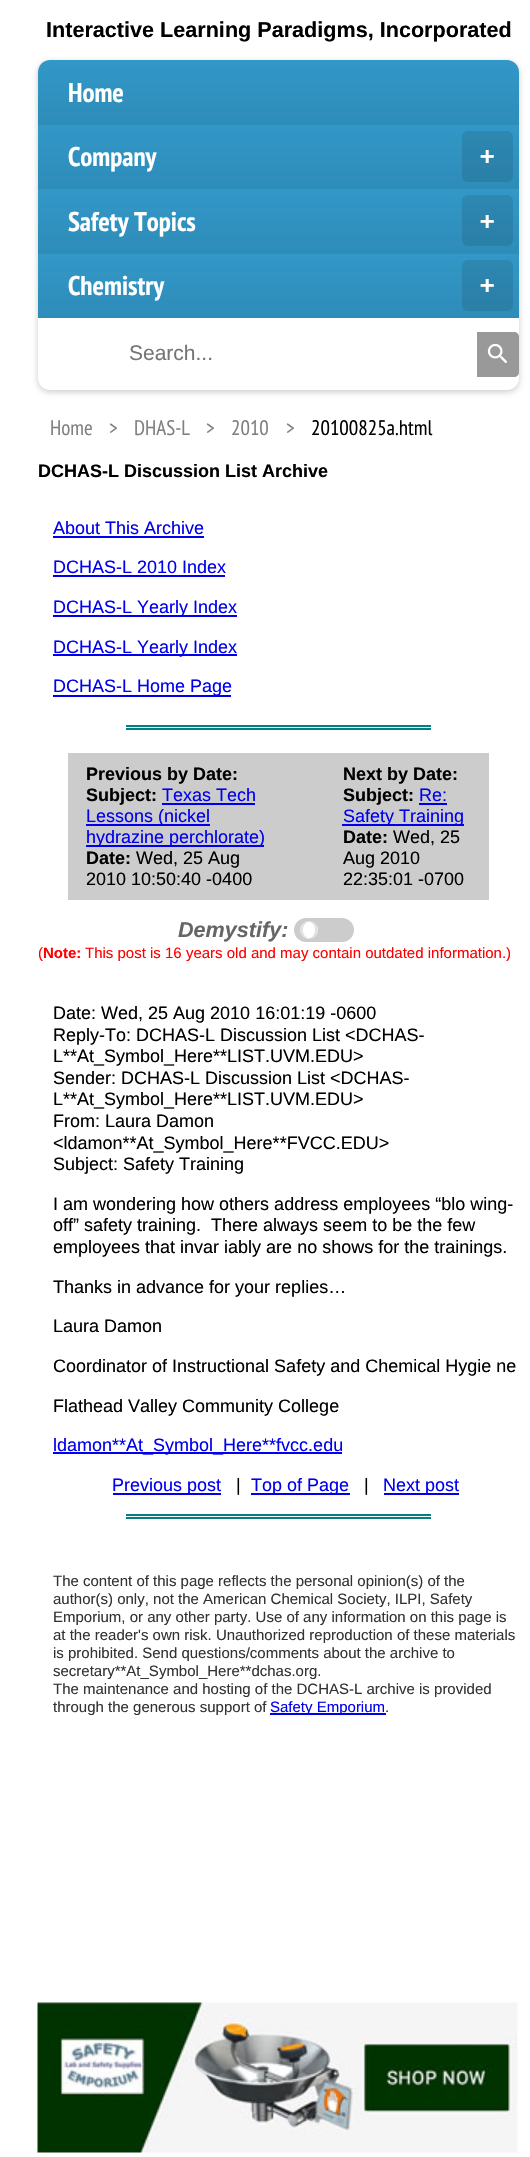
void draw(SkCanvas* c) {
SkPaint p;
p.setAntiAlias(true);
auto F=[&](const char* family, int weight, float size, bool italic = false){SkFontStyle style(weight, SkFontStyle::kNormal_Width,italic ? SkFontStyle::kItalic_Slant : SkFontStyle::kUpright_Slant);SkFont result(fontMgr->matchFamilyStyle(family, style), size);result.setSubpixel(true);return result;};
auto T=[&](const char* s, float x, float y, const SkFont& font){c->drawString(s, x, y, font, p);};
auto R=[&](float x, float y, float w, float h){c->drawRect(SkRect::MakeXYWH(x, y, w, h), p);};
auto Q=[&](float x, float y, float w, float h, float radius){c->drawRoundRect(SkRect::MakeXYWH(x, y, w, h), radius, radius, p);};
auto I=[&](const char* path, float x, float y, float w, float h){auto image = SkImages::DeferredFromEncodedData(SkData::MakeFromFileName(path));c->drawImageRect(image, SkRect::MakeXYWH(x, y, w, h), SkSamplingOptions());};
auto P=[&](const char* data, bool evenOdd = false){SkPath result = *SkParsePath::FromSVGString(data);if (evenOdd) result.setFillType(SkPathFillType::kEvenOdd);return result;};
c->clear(0xffffffff);
auto f1 = F("Liberation Sans",700,21.6);
p.setColor(0xff000000);
T("Interactive Learning Paradigms, Incorporated",46,37,f1);
c->save();
c->clipPath(P("M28 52h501v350h-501zm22 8h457c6.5 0 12 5.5 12 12v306c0 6.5-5.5 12-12 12h-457c-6.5 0-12-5.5-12-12v-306c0-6.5 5.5-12 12-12z",true),true);
p.setColor(0x33000000);
p.setMaskFilter(SkMaskFilter::MakeBlur(kNormal_SkBlurStyle, 3));
c->drawRoundRect(SkRect::MakeXYWH(38,62,481,330),12,12,p);
p.setMaskFilter(nullptr);
c->restore();
{
const SkColor colors[] = {0xff3298c8,0xff2e8cb8};
const float stops[] = {0,1};
const SkPoint ends[] = {{278,60}, {278,125}};
p.setShader(SkGradientShader::MakeLinear(ends, colors, stops, 2, SkTileMode::kClamp));
p.setAlpha(255);
}
c->drawPath(P("M50 60h457c6.5 0 12 5.5 12 12v53h-481v-53c0-6.5 5.5-12 12-12z"),p);
auto f2 = F("PT Sans Narrow",700,27);
p.setShader(nullptr);
p.setColor(0xffffffff);
T("Home",68,102,f2);
{
const SkColor colors[] = {0xff3298c8,0xff2e8cb8};
const float stops[] = {0,1};
const SkPoint ends[] = {{278,124}, {278,189}};
p.setShader(SkGradientShader::MakeLinear(ends, colors, stops, 2, SkTileMode::kClamp));
p.setAlpha(255);
}
R(38,125,481,64);
p.setShader(nullptr);
p.setColor(0xffffffff);
T("Company",68,166,f2);
p.setColor(0x1a000000);
Q(462,131,51,51,6);
auto f3 = F("DejaVu Sans Mono",700,24);
p.setColor(0xffffffff);
T("+",480,164,f3);
{
const SkColor colors[] = {0xff3298c8,0xff2e8cb8};
const float stops[] = {0,1};
const SkPoint ends[] = {{278,189}, {278,254}};
p.setShader(SkGradientShader::MakeLinear(ends, colors, stops, 2, SkTileMode::kClamp));
p.setAlpha(255);
}
R(38,189,481,65);
p.setShader(nullptr);
p.setColor(0xffffffff);
T("Safety Topics",68,231,f2);
p.setColor(0x1a000000);
Q(462,195,51,51,6);
p.setColor(0xffffffff);
T("+",480,229,f3);
{
const SkColor colors[] = {0xff3298c8,0xff2e8cb8};
const float stops[] = {0,1};
const SkPoint ends[] = {{278,253}, {278,318}};
p.setShader(SkGradientShader::MakeLinear(ends, colors, stops, 2, SkTileMode::kClamp));
p.setAlpha(255);
}
R(38,254,481,64);
p.setShader(nullptr);
p.setColor(0xffffffff);
T("Chemistry",68,295,f2);
p.setColor(0x1a000000);
Q(462,260,51,51,6);
p.setColor(0xffffffff);
T("+",480,293,f3);
auto f4 = F("Liberation Sans",400,21);
p.setColor(0xff757575);
T("Search...",129,360,f4);
p.setColor(0xff999999);
c->drawPath(P("M477 332h37c3 0 5 2 5 5v35c0 3-2 5-5 5h-37z"),p);
I("1.png",487,343,20,20);
auto f5 = F("PT Sans Narrow",400,21);
p.setColor(0xff808080);
T("Home",50,435,f5);
T(">",109,435,f5);
T("DHAS-L",134,435,f5);
T(">",206,435,f5);
T("2010",231,435,f5);
T(">",286,435,f5);
p.setColor(0xff000000);
T("20100825a.html",311,435,f5);
auto f6 = F("Liberation Sans",700,18);
T("DCHAS-L Discussion List Archive",38,477,f6);
auto f7 = F("Liberation Sans",400,18);
p.setColor(0xff0000ee);
T("About This Archive",53,534,f7);
R(53,536,151,2);
T("DCHAS-L 2010 Index",53,573,f7);
R(53,575,172,2);
R(53,615,184,2);
T("DCHAS-L Yearly Index",53,613,f7);
R(53,654,184,2);
T("DCHAS-L Yearly Index",53,653,f7);
R(53,695,178,2);
T("DCHAS-L Home Page",53,692,f7);
p.setColor(0xff008080);
R(126,725,305,2);
R(126,728,305,2);
p.setColor(0xffcccccc);
R(68,753,421,147);
p.setColor(0xff000000);
T("Previous by Date:",86,780,f6);
T("Subject:",86,801,f6);
p.setColor(0xff0000ee);
T("Texas Tech",162,801,f7);
R(162,803,93,2);
R(86,824,124,2);
T("Lessons (nickel",86,822,f7);
R(86,845,178,2);
T("hydrazine perchlorate)",86,843,f7);
p.setColor(0xff000000);
T("Date:",86,864,f6);
T("Wed, 25 Aug",136,864,f7);
T("2010 10:50:40 -0400",86,885,f7);
T("Next by Date:",343,780,f6);
T("Subject:",343,801,f6);
p.setColor(0xff0000ee);
T("Re:",419,801,f7);
R(419,803,28,2);
R(342,824,122,2);
T("Safety Training",343,822,f7);
p.setColor(0xff000000);
T("Date:",343,843,f6);
T("Wed, 25",393,843,f7);
T("Aug 2010",343,864,f7);
T("22:35:01 -0700",343,885,f7);
auto f8 = F("Liberation Sans",700,21.6,true);
p.setColor(0xff666666);
T("Demystify:",178,937,f8);
p.setColor(0xffcccccc);
Q(294,918,60,24,12);
p.setColor(0xffffffff);
c->drawCircle(309,930,9,p);
p.setColor(0x80c8c8c8);
c->drawPath(P("M309 921c-13 0-11 20 1.5 18c-10-1.5-10-16.5 0-18z"),p);
c->drawPath(P("M309 921h-1.5c10 1.5 10 16.5 0 18c12.5 2 14.5-18 1.5-18z"),p);
auto f9 = F("Liberation Sans",400,15);
p.setColor(0xffff0000);
T("(",38,958,f9);
auto f10 = F("Liberation Sans",700,15);
T("Note:",43,958,f10);
T("This post is 16 years old and may contain outdated information.)",85,958,f9);
p.setColor(0xff000000);
T("Date: Wed, 25 Aug 2010 16:01:19 -0600",53,1019,f7);
T("Reply-To: DCHAS-L Discussion List <DCHAS-",53,1041,f7);
T("L**At_Symbol_Here**LIST.UVM.EDU>",53,1062,f7);
T("Sender: DCHAS-L Discussion List <DCHAS-",53,1084,f7);
T("L**At_Symbol_Here**LIST.UVM.EDU>",53,1105,f7);
T("From: Laura Damon",53,1127,f7);
T("<ldamon**At_Symbol_Here**FVCC.EDU>",53,1149,f7);
T("Subject: Safety Training",53,1170,f7);
T("I am wondering how others address employees “blo wing-",53,1210,f7);
T("off” safety training.  There always seem to be the few",53,1231,f7);
T("employees that invar iably are no shows for the trainings.",53,1253,f7);
T("Thanks in advance for your replies…",53,1293,f7);
T("Laura Damon",53,1332,f7);
T("Coordinator of Instructional Safety and Chemical Hygie ne",53,1372,f7);
T("Flathead Valley Community College",53,1412,f7);
p.setColor(0xff0000ee);
R(53,1452,289,2);
T("ldamon**At_Symbol_Here**fvcc.edu",53,1451,f7);
R(113,1493,108,2);
T("Previous post",112,1491,f7);
p.setColor(0xff000000);
T("|",236,1491,f7);
p.setColor(0xff0000ee);
R(251,1493,99,2);
T("Top of Page",251,1491,f7);
p.setColor(0xff000000);
T("|",364,1491,f7);
p.setColor(0xff0000ee);
R(384,1493,75,2);
T("Next post",383,1491,f7);
p.setColor(0xff008080);
R(126,1514,305,2);
R(126,1517,305,2);
p.setColor(0xff333333);
T("The content of this page reflects the personal opinion(s) of the",53,1586,f9);
T("author(s) only, not the American Chemical Society, ILPI, Safety",53,1604,f9);
T("Emporium, or any other party. Use of any information on this page is",53,1622,f9);
T("at the reader's own risk. Unauthorized reproduction of these materials",53,1640,f9);
T("is prohibited. Send questions/comments about the archive to",53,1658,f9);
T("secretary**At_Symbol_Here**dchas.org.",53,1676,f9);
T("The maintenance and hosting of the DCHAS-L archive is provided",53,1694,f9);
T("through the generous support of",53,1712,f9);
p.setColor(0xff0000ee);
R(270,1713,116,2);
T("Safety Emporium",270,1712,f9);
p.setColor(0xff333333);
T(".",385,1712,f9);
I("2.png",37,2002,481,151);
}
